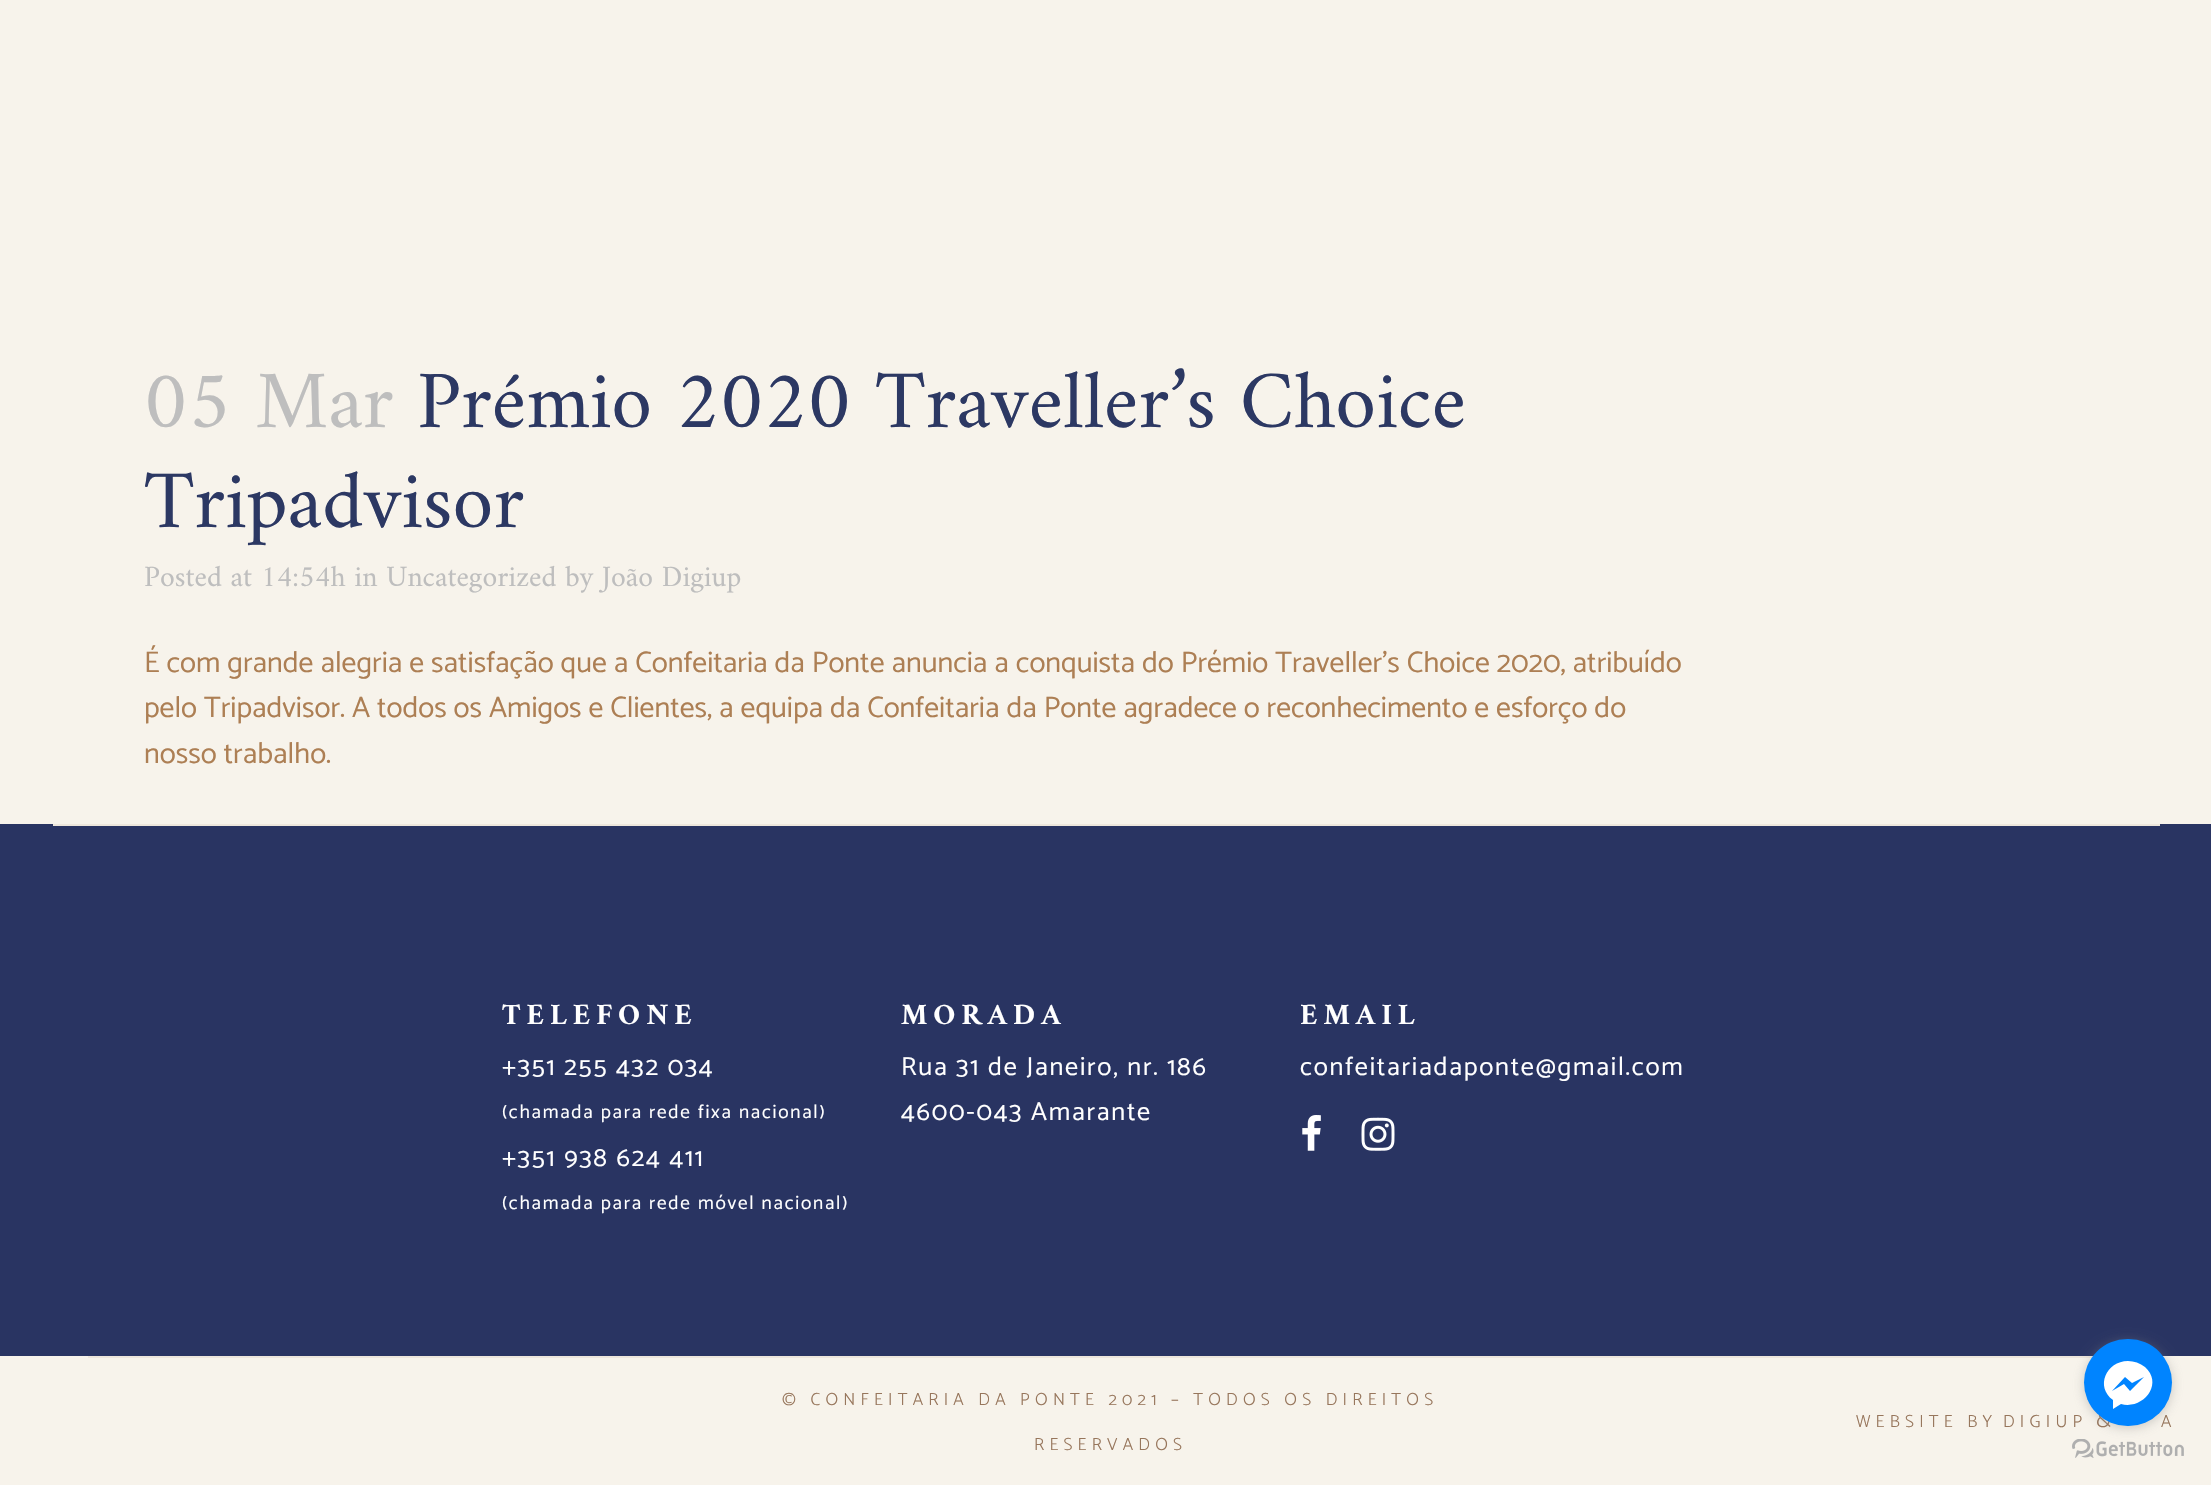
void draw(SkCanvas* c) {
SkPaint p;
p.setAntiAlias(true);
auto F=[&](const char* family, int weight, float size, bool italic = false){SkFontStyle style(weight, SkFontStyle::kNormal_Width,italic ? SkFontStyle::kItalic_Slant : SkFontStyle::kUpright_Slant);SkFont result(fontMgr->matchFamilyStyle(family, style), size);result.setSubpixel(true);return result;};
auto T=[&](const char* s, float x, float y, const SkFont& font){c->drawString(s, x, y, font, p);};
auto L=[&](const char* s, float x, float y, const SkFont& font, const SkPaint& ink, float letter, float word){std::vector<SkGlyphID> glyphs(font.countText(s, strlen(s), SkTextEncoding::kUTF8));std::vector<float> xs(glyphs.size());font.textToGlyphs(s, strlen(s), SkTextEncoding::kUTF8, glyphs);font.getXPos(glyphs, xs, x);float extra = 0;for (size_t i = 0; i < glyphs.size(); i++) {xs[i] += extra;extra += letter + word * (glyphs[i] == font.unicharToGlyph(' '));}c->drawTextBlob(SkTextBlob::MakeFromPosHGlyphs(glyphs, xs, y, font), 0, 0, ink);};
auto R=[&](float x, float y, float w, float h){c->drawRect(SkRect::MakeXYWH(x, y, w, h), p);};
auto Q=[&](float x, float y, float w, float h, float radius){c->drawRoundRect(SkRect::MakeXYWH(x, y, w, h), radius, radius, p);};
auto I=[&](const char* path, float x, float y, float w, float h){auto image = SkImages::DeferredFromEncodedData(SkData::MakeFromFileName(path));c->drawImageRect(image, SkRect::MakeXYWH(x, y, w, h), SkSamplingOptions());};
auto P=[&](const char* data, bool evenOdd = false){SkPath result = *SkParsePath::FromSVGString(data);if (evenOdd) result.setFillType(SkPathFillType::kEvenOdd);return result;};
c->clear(0xfff7f3eb);
auto f1 = F("Amiri",400,82.25);
p.setColor(0xffbebebe);
T("05 Mar",144,427,f1);
p.setColor(0xff2c3863);
T("Prémio 2020 Traveller’s Choice",417,427,f1);
T("Tripadvisor",144,527,f1);
auto f2 = F("Amiri",400,29.75);
p.setColor(0xffbebebe);
T("Posted at 14:54h in Uncategorized by João Digiup",144,586,f2);
auto f3 = F("Catamaran",400,29.75);
p.setColor(0xffad7f54);
T("É com grande alegria e satisfação que a Confeitaria da Ponte anuncia a conquista do Prémio Traveller’s Choice 2020, atribuído",144,672,f3);
T("pelo Tripadvisor. A todos os Amigos e Clientes, a equipa da Confeitaria da Ponte agradece o reconhecimento e esforço do",144,717,f3);
T("nosso trabalho.",144,763,f3);
p.setColor(0xff293462);
R(0,824,2211,532);
p.setColor(0xffede6dc);
R(53,824,2107,2);
auto f4 = F("Amiri",700,29.75);
p.setColor(0xffffffff);
L("TELEFONE",502,1024,f4,p,6,0);
auto f5 = F("Catamaran",400,26.25);
L("+351 255 432 034",502,1075,f5,p,1.75,0);
auto f6 = F("Catamaran",400,19.25);
L("(chamada para rede fixa nacional)",502,1118,f6,p,1.75,0);
L("+351 938 624 411",502,1166,f5,p,1.75,0);
L("(chamada para rede móvel nacional)",502,1209,f6,p,1.75,0);
L("MORADA",901,1024,f4,p,6,0);
L("Rua 31 de Janeiro, nr. 186",901,1075,f5,p,1.75,0);
L("4600-043 Amarante",901,1120,f5,p,1.75,0);
L("EMAIL",1300,1024,f4,p,6,0);
L("confeitariadaponte@gmail.com",1300,1075,f5,p,1.75,0);
I("1.png",1302,1115,19,36);
I("2.png",1361,1117,34,34);
p.setColor(0xffede6dc);
R(88,1356,2005,2);
auto f7 = F("Catamaran",300,17.5);
p.setColor(0xff97765c);
L("© CONFEITARIA DA PONTE 2021 – TODOS OS DIREITOS",782,1405,f7,p,5.25,0);
L("RESERVADOS",1034,1450,f7,p,5.25,0);
L("WEBSITE BY",1856,1427,f7,p,5.25,0);
L("DIGIUP",2003,1427,f7,p,5.25,0);
auto f8 = F("Catamaran",300,23);
T("&",2096,1427,f8);
L("A",2161,1427,f7,p,5.25,0);
I("3.png",2072,1439,112,19);
p.setColor(0x66888888);
p.setMaskFilter(SkMaskFilter::MakeBlur(kNormal_SkBlurStyle, 6));
c->drawRoundRect(SkRect::MakeXYWH(2084,1341,88,87),43.5,43.5,p);
p.setMaskFilter(nullptr);
p.setColor(0xff0084ff);
Q(2084,1339,88,87,43.5);
p.setColor(0xffffffff);
c->drawPath(P("M2128 1361c-22 0-33 26-15 39v9l8-5c22 6 43-20 24-37c-5-4-11-6-17-6zm2 30l-6-7l-12 7l13-14l7 6l12-6z"),p);
}
